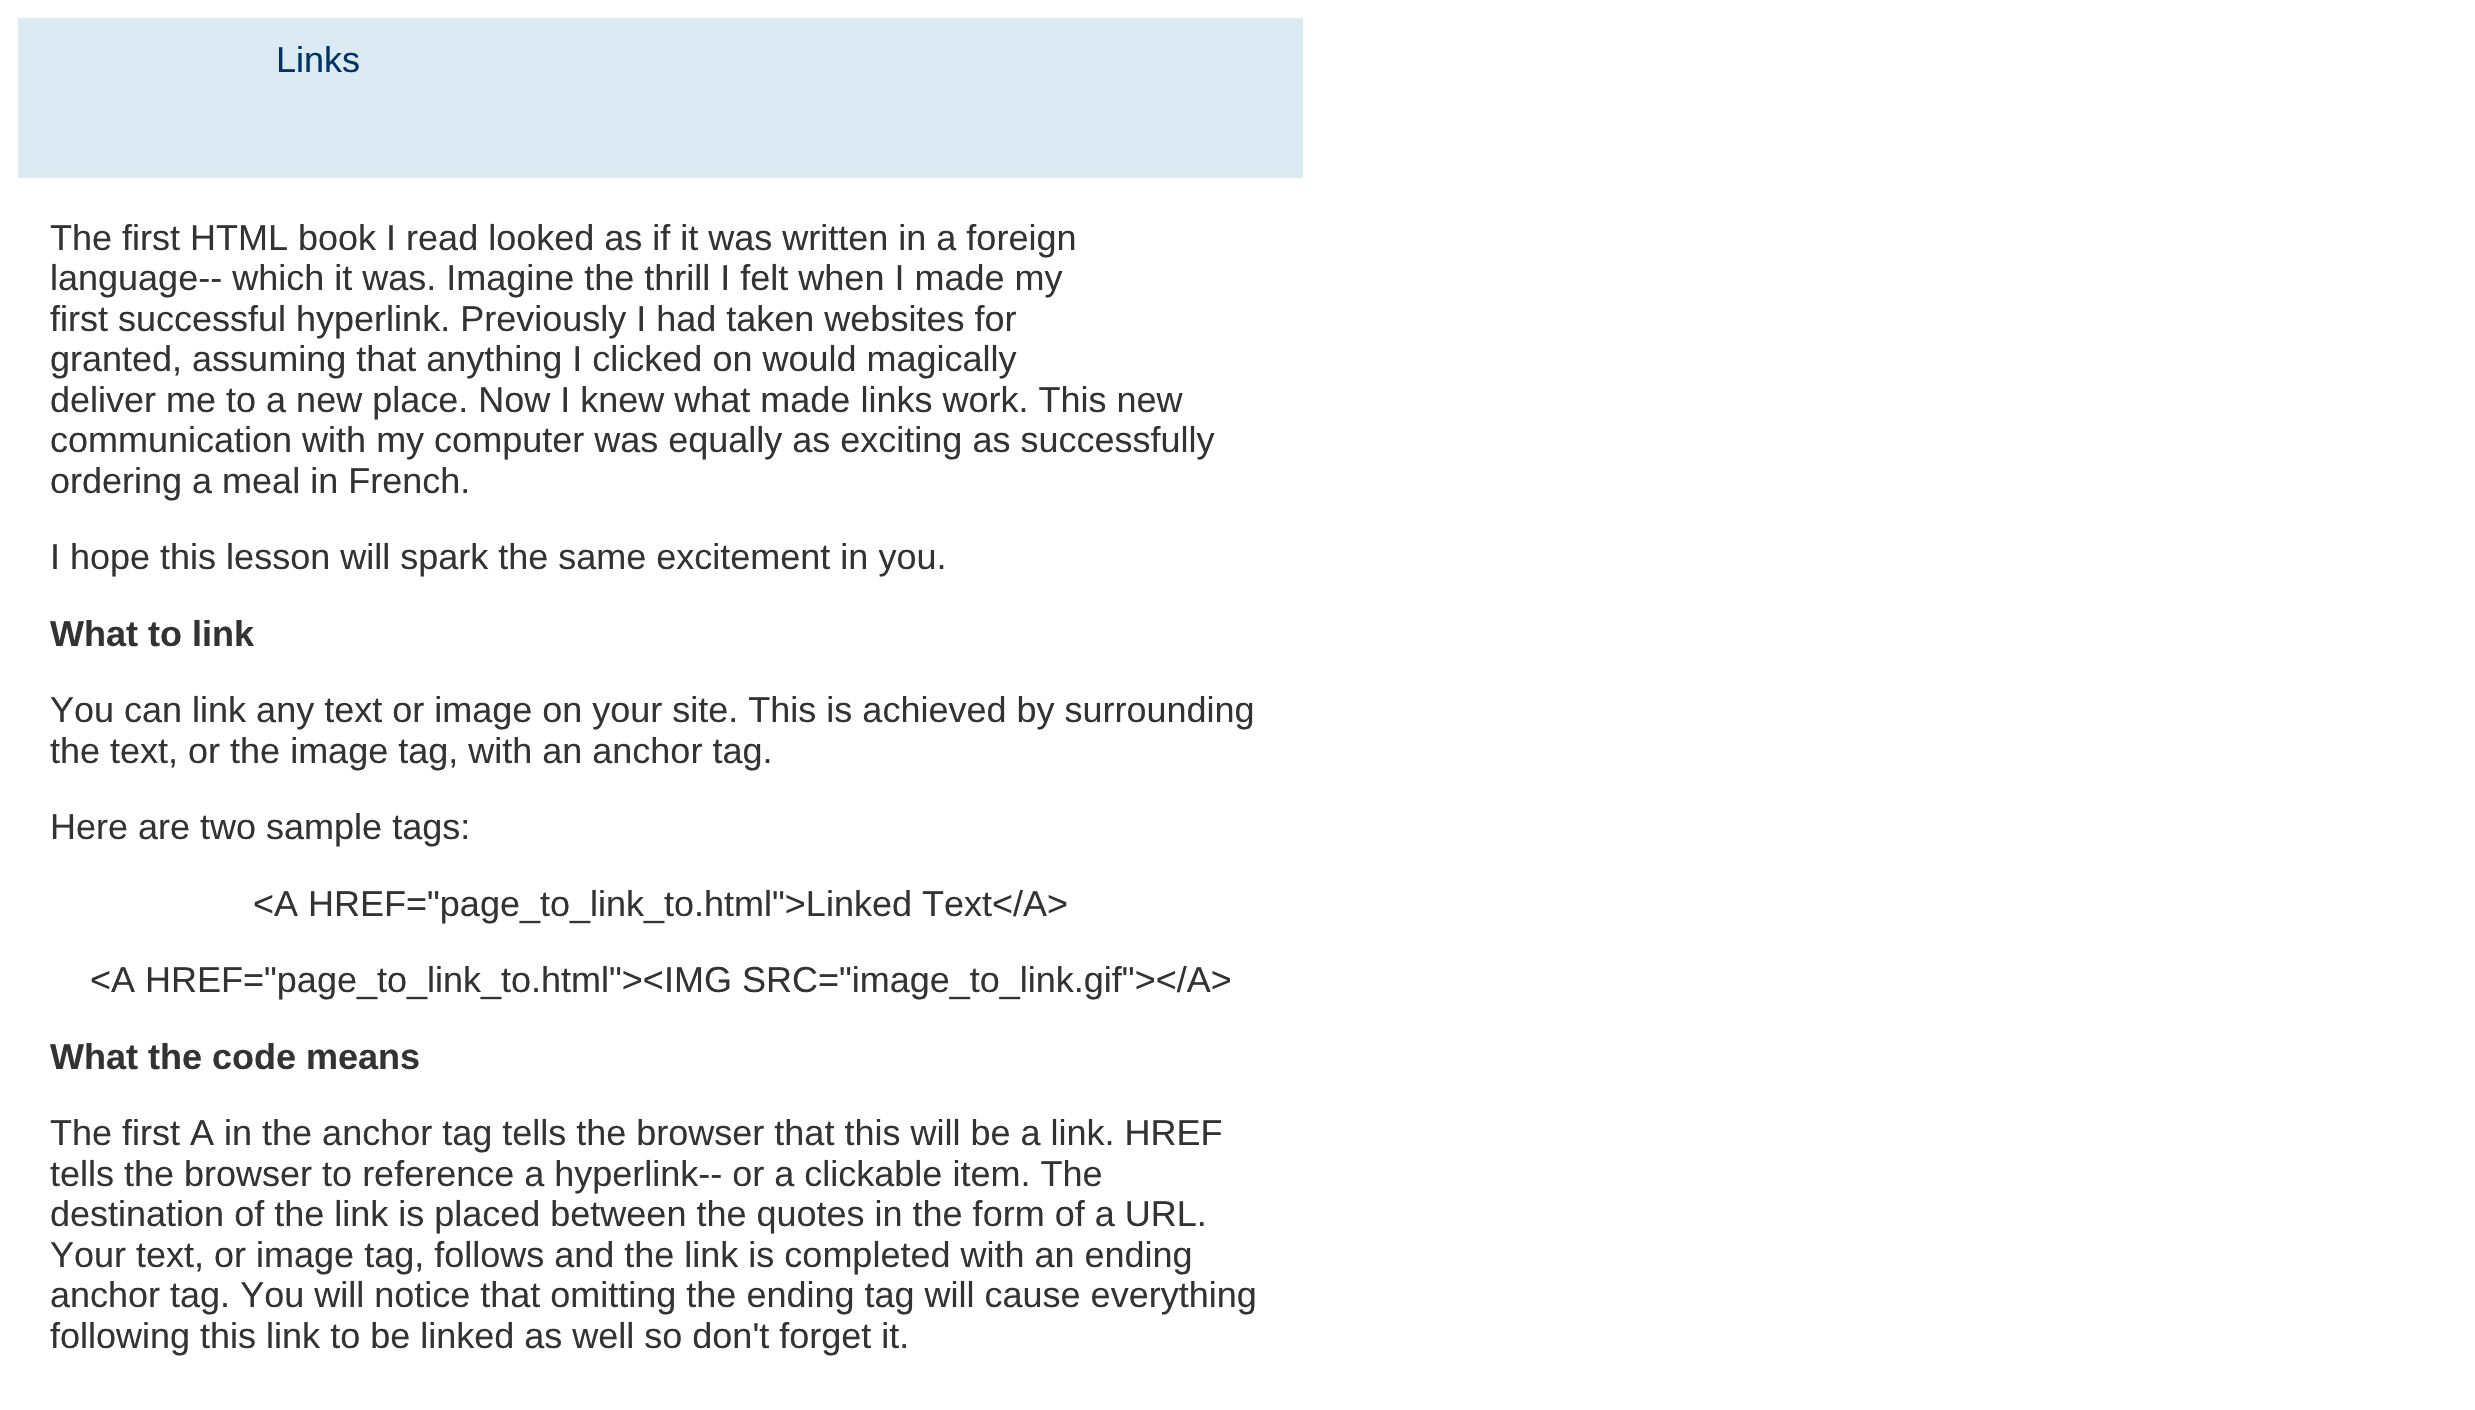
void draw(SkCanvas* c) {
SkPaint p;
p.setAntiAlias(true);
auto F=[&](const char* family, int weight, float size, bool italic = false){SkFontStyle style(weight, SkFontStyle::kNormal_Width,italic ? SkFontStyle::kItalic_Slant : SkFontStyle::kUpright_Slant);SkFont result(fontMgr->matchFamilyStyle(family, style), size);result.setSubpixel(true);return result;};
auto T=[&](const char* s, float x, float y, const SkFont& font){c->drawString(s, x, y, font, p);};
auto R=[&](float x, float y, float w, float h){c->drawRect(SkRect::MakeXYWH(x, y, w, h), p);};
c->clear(0xffffffff);
p.setColor(0xffdceaf4);
R(18,18,1285,23);
R(18,41,1285,137);
auto f1 = F("Liberation Sans",400,36);
p.setColor(0xff003366);
T("Links",276,72,f1);
p.setColor(0xff333333);
T("The first HTML book I read looked as if it was written in a foreign",50,250,f1);
T("language-- which it was. Imagine the thrill I felt when I made my",50,290,f1);
T("first successful hyperlink. Previously I had taken websites for",50,331,f1);
T("granted, assuming that anything I clicked on would magically",50,371,f1);
T("deliver me to a new place. Now I knew what made links work. This new",50,412,f1);
T("communication with my computer was equally as exciting as successfully",50,452,f1);
T("ordering a meal in French.",50,493,f1);
T("I hope this lesson will spark the same excitement in you.",50,569,f1);
auto f2 = F("Liberation Sans",700,36);
T("What to link",50,646,f2);
T("You can link any text or image on your site. This is achieved by surrounding",50,722,f1);
T("the text, or the image tag, with an anchor tag.",50,763,f1);
T("Here are two sample tags:",50,839,f1);
T("<A HREF=\"page_to_link_to.html\">Linked Text</A>",253,916,f1);
T("<A HREF=\"page_to_link_to.html\"><IMG SRC=\"image_to_link.gif\"></A>",90,992,f1);
T("What the code means",50,1069,f2);
T("The first A in the anchor tag tells the browser that this will be a link. HREF",50,1145,f1);
T("tells the browser to reference a hyperlink-- or a clickable item. The",50,1186,f1);
T("destination of the link is placed between the quotes in the form of a URL.",50,1226,f1);
T("Your text, or image tag, follows and the link is completed with an ending",50,1267,f1);
T("anchor tag. You will notice that omitting the ending tag will cause everything",50,1307,f1);
T("following this link to be linked as well so don't forget it.",50,1348,f1);
}
